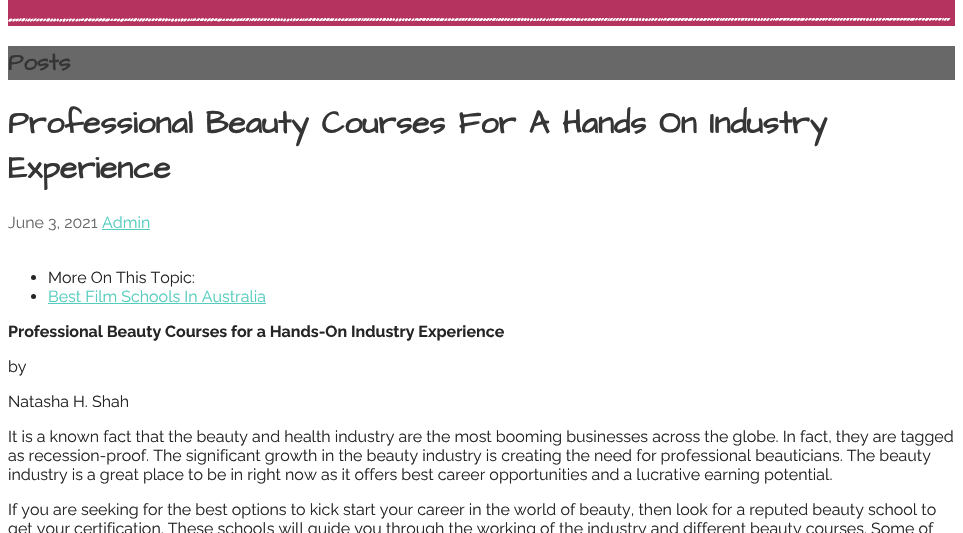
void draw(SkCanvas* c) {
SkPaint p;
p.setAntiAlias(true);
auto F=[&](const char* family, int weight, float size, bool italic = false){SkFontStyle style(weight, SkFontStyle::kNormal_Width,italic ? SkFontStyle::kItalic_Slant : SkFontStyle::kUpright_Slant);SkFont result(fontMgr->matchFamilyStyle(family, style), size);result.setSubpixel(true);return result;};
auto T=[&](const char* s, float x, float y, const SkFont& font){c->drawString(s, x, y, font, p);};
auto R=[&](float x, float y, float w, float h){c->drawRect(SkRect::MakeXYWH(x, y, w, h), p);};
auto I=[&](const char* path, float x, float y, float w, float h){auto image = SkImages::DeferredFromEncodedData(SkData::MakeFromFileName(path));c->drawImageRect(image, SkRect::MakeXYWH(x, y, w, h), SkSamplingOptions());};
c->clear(0xffffffff);
p.setColor(0xffb5345f);
R(8,0,947,26);
I("1.png",8,18,943,4);
p.setColor(0xff686868);
R(8,46,947,34);
auto f1 = F("Architects Daughter",700,24);
p.setColor(0xff353535);
T("Posts",8,70,f1);
auto f2 = F("Architects Daughter",700,32);
T("Professional Beauty Courses For A Hands On Industry",8,133,f2);
T("Experience",8,178,f2);
auto f3 = F("Raleway",400,16);
p.setColor(0xff686868);
T("June 3, 2021",8,228,f3);
p.setColor(0xff54ccbe);
T("Admin",102,228,f3);
R(102,229,48,1);
p.setColor(0xff252525);
c->drawCircle(33.5,277.5,2.5,p);
T("More On This Topic:",48,283,f3);
c->drawCircle(33.5,296.5,2.5,p);
p.setColor(0xff54ccbe);
T("Best Film Schools In Australia",48,302,f3);
R(48,303,218,1);
auto f4 = F("Raleway",700,16);
p.setColor(0xff252525);
T("Professional Beauty Courses for a Hands-On Industry Experience",8,337,f4);
T("by",8,372,f3);
T("Natasha H. Shah",8,407,f3);
T("It is a known fact that the beauty and health industry are the most booming businesses across the globe. In fact, they are tagged",8,442,f3);
T("as recession-proof. The significant growth in the beauty industry is creating the need for professional beauticians. The beauty",8,461,f3);
T("industry is a great place to be in right now as it offers best career opportunities and a lucrative earning potential.",8,480,f3);
T("If you are seeking for the best options to kick start your career in the world of beauty, then look for a reputed beauty school to",8,515,f3);
T("get your certification. These schools will guide you through the working of the industry and different beauty courses. Some of",8,534,f3);
}
